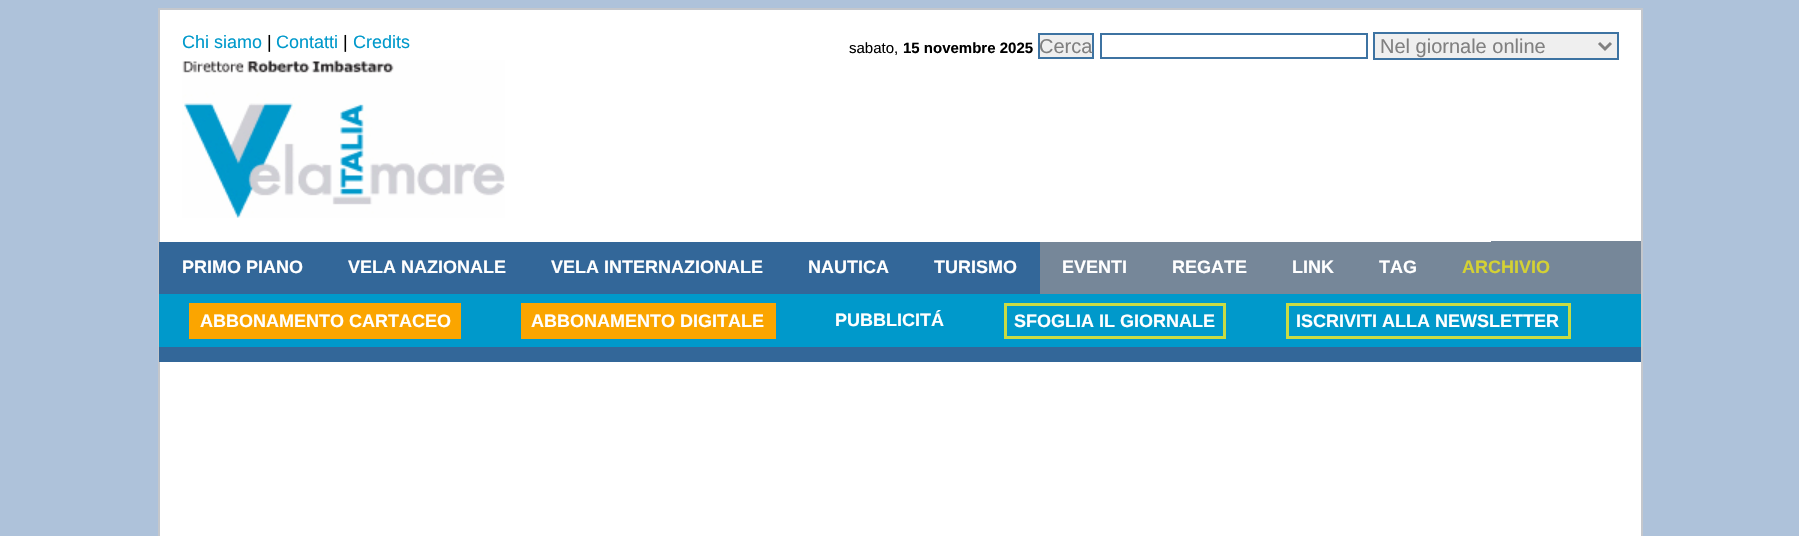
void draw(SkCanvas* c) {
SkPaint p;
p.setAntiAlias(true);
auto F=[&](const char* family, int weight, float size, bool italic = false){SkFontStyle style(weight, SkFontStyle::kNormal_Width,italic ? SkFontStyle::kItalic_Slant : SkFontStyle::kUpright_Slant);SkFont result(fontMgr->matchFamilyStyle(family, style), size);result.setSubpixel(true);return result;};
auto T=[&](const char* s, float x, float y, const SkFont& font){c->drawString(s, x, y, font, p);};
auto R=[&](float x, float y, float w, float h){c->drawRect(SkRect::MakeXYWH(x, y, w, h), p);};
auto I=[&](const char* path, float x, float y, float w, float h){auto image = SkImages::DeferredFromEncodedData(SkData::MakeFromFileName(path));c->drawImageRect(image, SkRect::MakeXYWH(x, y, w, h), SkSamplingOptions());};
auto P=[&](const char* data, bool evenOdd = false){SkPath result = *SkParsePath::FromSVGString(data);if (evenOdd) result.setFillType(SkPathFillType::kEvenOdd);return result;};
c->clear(0xffaec2da);
p.setColor(0xffffffff);
c->drawRect(SkRect::MakeXYWH(159,9,1483,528),p);
p.setStroke(true);
p.setStrokeWidth(2);
p.setColor(0xffc4c7cc);
c->drawRect(SkRect::MakeXYWH(159,9,1483,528),p);
auto f1 = F("Liberation Sans",400,18);
p.setStroke(false);
p.setColor(0xff0099cb);
T("Chi siamo",182,48,f1);
p.setColor(0xff000000);
T("|",267,48,f1);
p.setColor(0xff0099cb);
T("Contatti",276,48,f1);
p.setColor(0xff000000);
T("|",343,48,f1);
p.setColor(0xff0099cb);
T("Credits",353,48,f1);
auto f2 = F("Liberation Sans",400,15);
p.setColor(0xff000000);
T("sabato,",849,53,f2);
auto f3 = F("Liberation Sans",700,15);
T("15 novembre 2025",903,53,f3);
p.setColor(0xffefefef);
c->drawRect(SkRect::MakeXYWH(1039,34,54,24),p);
p.setStroke(true);
p.setColor(0xff3d73a2);
c->drawRect(SkRect::MakeXYWH(1039,34,54,24),p);
auto f4 = F("Liberation Sans",400,20);
p.setStroke(false);
p.setColor(0xff808080);
T("Cerca",1039,53,f4);
p.setStroke(true);
p.setColor(0xff3d73a2);
c->drawRect(SkRect::MakeXYWH(1101,34,266,24),p);
p.setStroke(false);
p.setColor(0xffefefef);
c->drawRect(SkRect::MakeXYWH(1374,33,244,26),p);
p.setStroke(true);
p.setColor(0xff3d73a2);
c->drawRect(SkRect::MakeXYWH(1374,33,244,26),p);
p.setStrokeWidth(3);
p.setColor(0xff808080);
c->drawPath(P("M1599 43l6 6l6-6"),p);
p.setStroke(false);
T("Nel giornale online",1380,53,f4);
I("1.png",182,60,323,158);
p.setColor(0xff336799);
R(159,242,881,52);
p.setColor(0xff768799);
R(1491,241,150,53);
auto f5 = F("Liberation Sans",700,18);
p.setColor(0xffffffff);
T("PRIMO PIANO",182,273,f5);
T("VELA NAZIONALE",348,273,f5);
T("VELA INTERNAZIONALE",551,273,f5);
T("NAUTICA",808,273,f5);
T("TURISMO",934,273,f5);
p.setColor(0xff768799);
R(1040,242,451,52);
p.setColor(0xffffffff);
T("EVENTI",1062,273,f5);
T("REGATE",1172,273,f5);
T("LINK",1292,273,f5);
T("TAG",1379,273,f5);
p.setColor(0xffd4d134);
T("ARCHIVIO",1462,273,f5);
p.setColor(0xff0099cb);
R(159,294,1482,53);
p.setColor(0xff336799);
R(159,347,1482,15);
p.setColor(0xfffba500);
R(189,303,272,36);
p.setColor(0xffffffff);
T("ABBONAMENTO CARTACEO",200,327,f5);
p.setColor(0xfffba500);
R(521,303,255,36);
p.setColor(0xffffffff);
T("ABBONAMENTO DIGITALE",531,327,f5);
T("PUBBLICITÁ",835,326,f5);
p.setStroke(true);
p.setColor(0xffc8db43);
c->drawRect(SkRect::MakeXYWH(1005.5,304.5,219,33),p);
p.setStroke(false);
p.setColor(0xffffffff);
T("SFOGLIA IL GIORNALE",1014,327,f5);
p.setStroke(true);
p.setColor(0xffc8db43);
c->drawRect(SkRect::MakeXYWH(1287.5,304.5,282,33),p);
p.setStroke(false);
p.setColor(0xffffffff);
T("ISCRIVITI ALLA NEWSLETTER",1296,327,f5);
}
